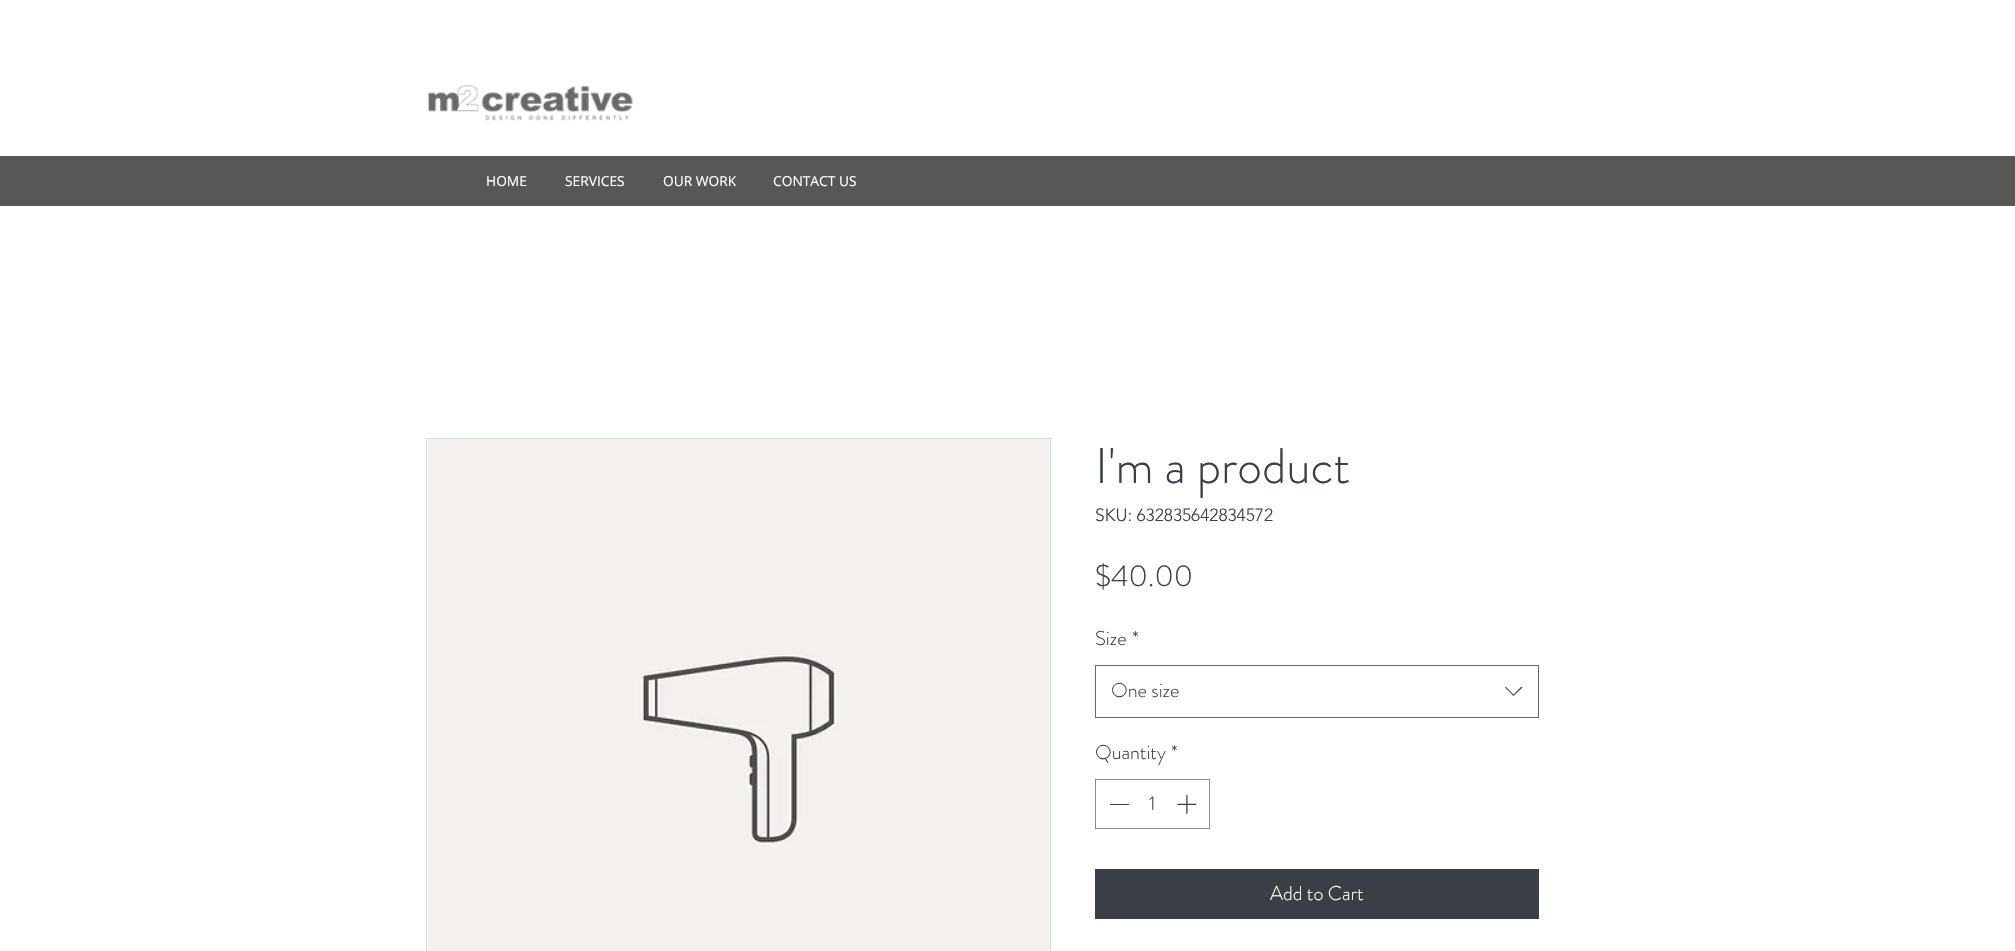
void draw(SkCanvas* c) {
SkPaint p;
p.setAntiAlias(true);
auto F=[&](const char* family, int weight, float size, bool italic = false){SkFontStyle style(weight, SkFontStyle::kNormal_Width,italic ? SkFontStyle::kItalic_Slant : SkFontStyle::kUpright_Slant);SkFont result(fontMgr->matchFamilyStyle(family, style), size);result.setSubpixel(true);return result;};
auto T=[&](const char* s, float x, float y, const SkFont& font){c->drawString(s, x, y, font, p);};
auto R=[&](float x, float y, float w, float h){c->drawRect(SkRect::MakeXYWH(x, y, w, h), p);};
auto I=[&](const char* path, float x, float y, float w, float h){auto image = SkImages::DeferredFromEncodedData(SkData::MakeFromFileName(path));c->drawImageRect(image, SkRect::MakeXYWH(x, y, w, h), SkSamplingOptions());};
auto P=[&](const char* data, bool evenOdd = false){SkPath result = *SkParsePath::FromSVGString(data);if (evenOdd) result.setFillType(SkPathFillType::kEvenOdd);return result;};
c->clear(0xffffffff);
I("1.png",427,85,206,36);
p.setColor(0xff595656);
R(0,156,2015,50);
auto f1 = F("Open Sans",400,13.75);
p.setColor(0xffffffff);
T("HOME",486,186,f1);
T("SERVICES",565,186,f1);
T("OUR WORK",663,186,f1);
T("CONTACT US",773,186,f1);
p.setStroke(true);
p.setStrokeWidth(1);
p.setColor(0xffd7d9da);
c->drawRect(SkRect::MakeXYWH(426.5,438.5,624,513),p);
I("2.png",428,439,622,512);
auto f2 = F("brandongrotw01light",300,50);
p.setStroke(false);
p.setColor(0xff393f44);
T("I'm a product",1095,483,f2);
auto f3 = F("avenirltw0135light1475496",300,17.5);
T("SKU: 632835642834572",1095,521,f3);
auto f4 = F("brandongrotw01light",300,30);
T("$40.00",1095,586,f4);
auto f5 = F("brandongrotw01light",300,20);
T("Size",1095,645,f5);
T("*",1132,645,f5);
p.setStroke(true);
p.setColor(0xff666666);
c->drawRect(SkRect::MakeXYWH(1095.5,665.5,443,52),p);
p.setStroke(false);
p.setColor(0xff444444);
T("One size",1111,697,f5);
c->drawPath(P("M1521.5 686.5l1 1l-9 8.5l-8.5-8.5l.5-1l8 8z",true),p);
p.setColor(0xff393f44);
T("Quantity",1095,759,f5);
T("*",1171,759,f5);
p.setStroke(true);
p.setColor(0xff888c8f);
c->drawRect(SkRect::MakeXYWH(1095.5,779.5,114,49),p);
p.setStroke(false);
p.setColor(0xff393f44);
R(1110,804,19,1);
T("1",1149,810,f5);
I("3.png",1177,795,20,19);
R(1095,869,444,50);
p.setColor(0xffffffff);
T("Add to Cart",1270,900,f5);
}
